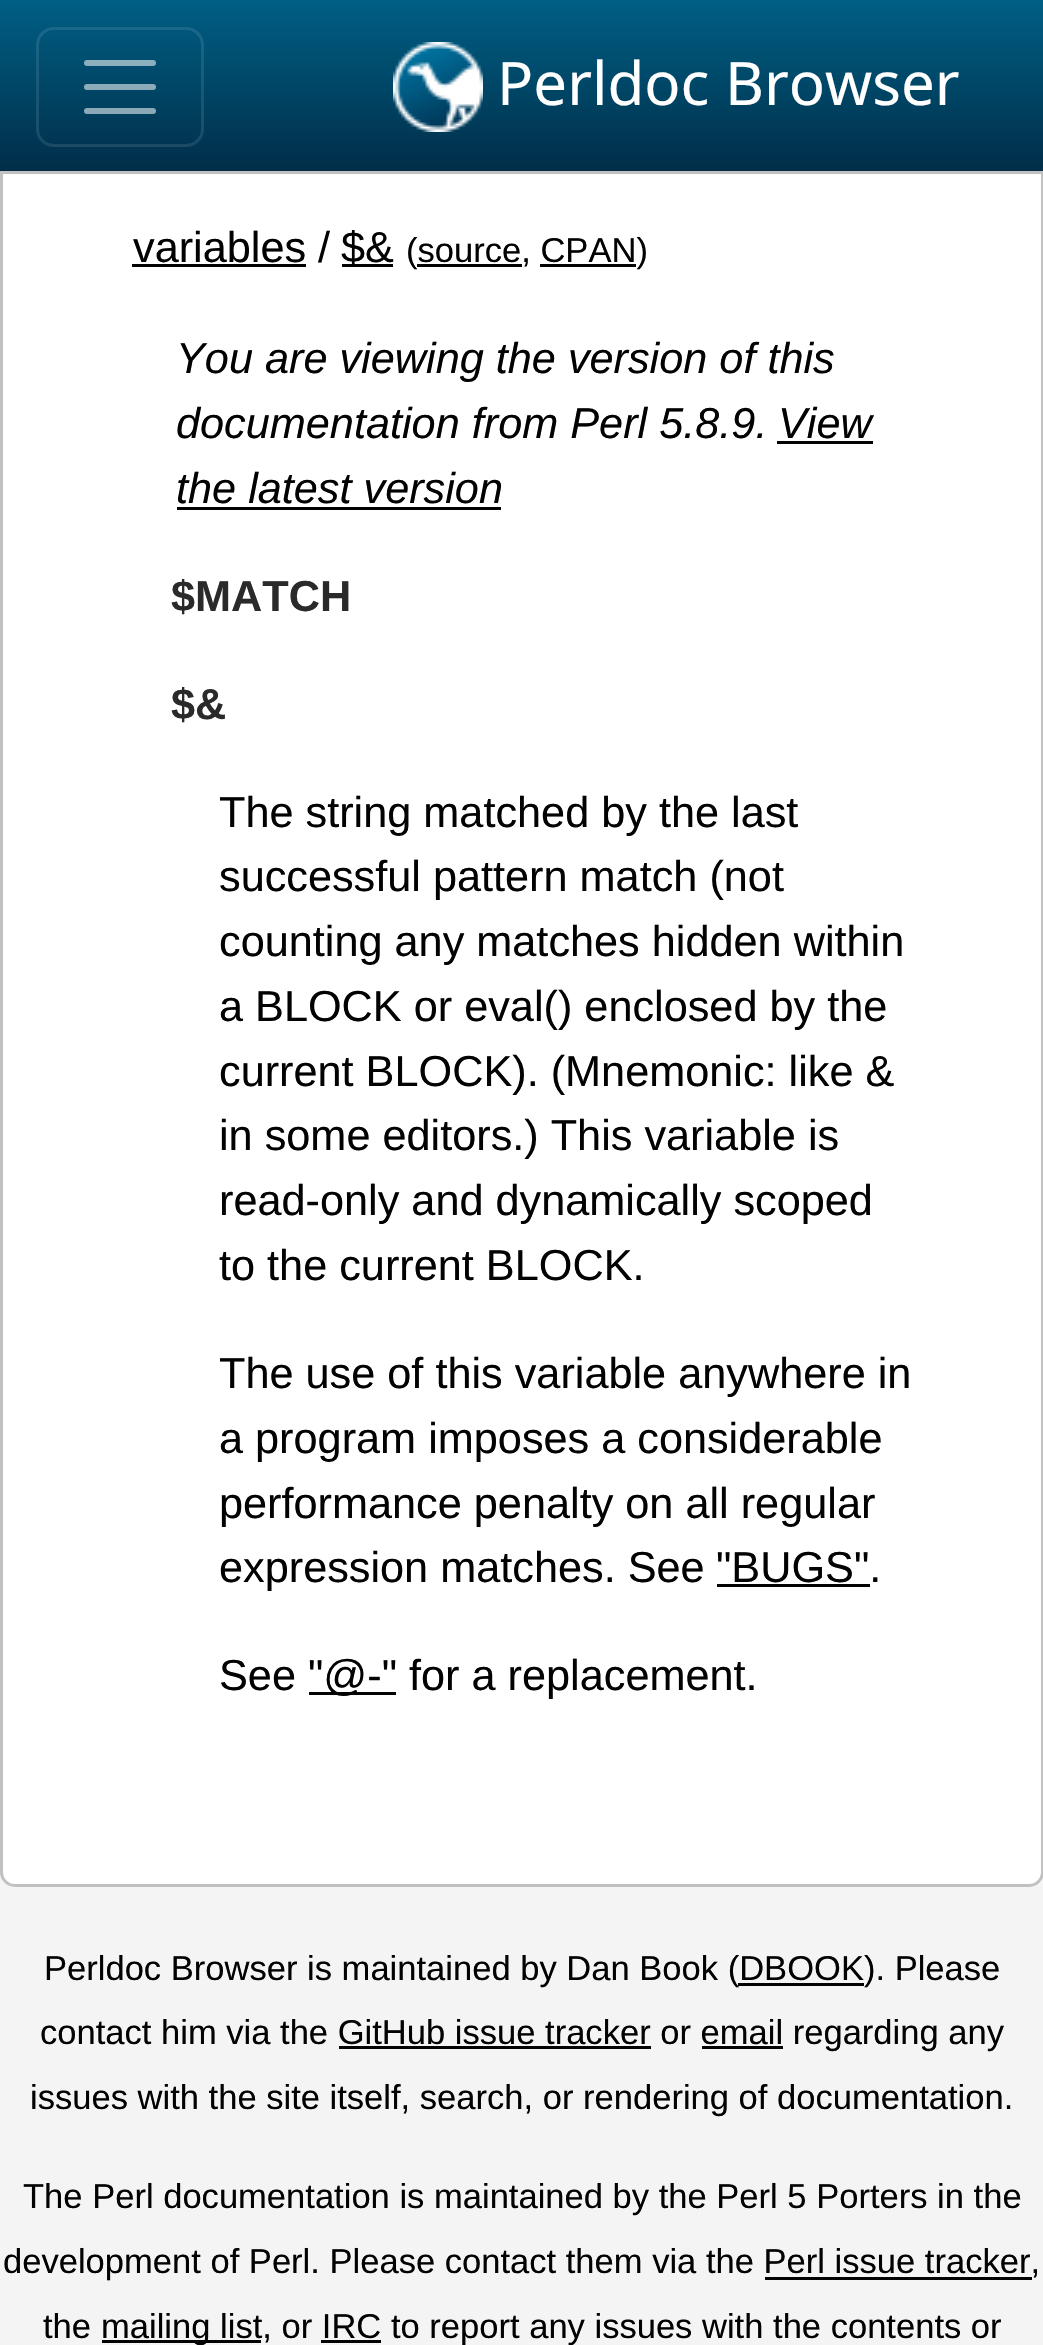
void draw(SkCanvas* c) {
SkPaint p;
p.setAntiAlias(true);
auto F=[&](const char* family, int weight, float size, bool italic = false){SkFontStyle style(weight, SkFontStyle::kNormal_Width,italic ? SkFontStyle::kItalic_Slant : SkFontStyle::kUpright_Slant);SkFont result(fontMgr->matchFamilyStyle(family, style), size);result.setSubpixel(true);return result;};
auto T=[&](const char* s, float x, float y, const SkFont& font){c->drawString(s, x, y, font, p);};
auto R=[&](float x, float y, float w, float h){c->drawRect(SkRect::MakeXYWH(x, y, w, h), p);};
auto I=[&](const char* path, float x, float y, float w, float h){auto image = SkImages::DeferredFromEncodedData(SkData::MakeFromFileName(path));c->drawImageRect(image, SkRect::MakeXYWH(x, y, w, h), SkSamplingOptions());};
auto P=[&](const char* data, bool evenOdd = false){SkPath result = *SkParsePath::FromSVGString(data);if (evenOdd) result.setFillType(SkPathFillType::kEvenOdd);return result;};
c->clear(0xfff4f4f5);
{
const SkColor colors[] = {0xff005f85,0xff002e49};
const float stops[] = {0,1};
const SkPoint ends[] = {{522,0}, {522,171}};
p.setShader(SkGradientShader::MakeLinear(ends, colors, stops, 2, SkTileMode::kClamp));
p.setAlpha(255);
}
R(0,0,1043,171);
p.setStroke(true);
p.setStrokeWidth(3);
p.setShader(nullptr);
p.setColor(0x1affffff);
c->drawRoundRect(SkRect::MakeXYWH(37.5,28.5,165,117),16.5,16.5,p);
p.setStrokeWidth(6);
p.setStrokeCap(SkPaint::kRound_Cap);
p.setColor(0x8cffffff);
c->drawPath(P("M87 63h66m-66 24h66m-66 24h66"),p);
I("1.png",393,42,90,90);
auto f1 = F("Noto Sans",400,60);
p.setStroke(false);
p.setColor(0xffffffff);
T("Perldoc Browser",497,105,f1);
c->drawPath(P("M1.5 172.5h1041v1699.5c0 7.5-6 13.5-13.5 13.5h-1014c-7.5 0-13.5-6-13.5-13.5z"),p);
p.setStroke(true);
p.setStrokeWidth(3);
p.setStrokeCap(SkPaint::kButt_Cap);
p.setColor(0xffc1c1c1);
c->drawPath(P("M1.5 172.5h1041v1699.5c0 7.5-6 13.5-13.5 13.5h-1014c-7.5 0-13.5-6-13.5-13.5z"),p);
auto f2 = F("Liberation Sans",400,43.25);
p.setStroke(false);
p.setColor(0xff020202);
T("variables /",133,262,f2);
R(132,264,174,3);
R(342,264,51,3);
T("$&",341,262,f2);
auto f3 = F("Liberation Sans",400,34.55);
T("(source, CPAN)",406,262,f3);
R(417,264,105,3);
R(540,264,96,3);
auto f4 = F("Liberation Sans",400,43.25,true);
T("You are viewing the version of this",176,373,f4);
T("documentation from Perl 5.8.9.",176,438,f4);
T("View",778,438,f4);
R(777,441,96,3);
T("the latest version",176,503,f4);
R(177,507,324,3);
auto f5 = F("Liberation Sans",700,43.25);
p.setColor(0xff2a2a2a);
T("$MATCH",171,611,f5);
T("$&",171,719,f5);
p.setColor(0xff020202);
T("The string matched by the last",219,827,f2);
T("successful pattern match (not",219,891,f2);
T("counting any matches hidden within",219,956,f2);
T("a BLOCK or eval() enclosed by the",219,1021,f2);
T("current BLOCK). (Mnemonic: like &",219,1086,f2);
T("in some editors.) This variable is",219,1150,f2);
T("read-only and dynamically scoped",219,1215,f2);
T("to the current BLOCK.",219,1280,f2);
T("The use of this variable anywhere in",219,1388,f2);
T("a program imposes a considerable",219,1453,f2);
T("performance penalty on all regular",219,1518,f2);
T("expression matches. See",219,1582,f2);
T("\"BUGS\".",716,1582,f2);
R(717,1584,153,3);
T("See",219,1690,f2);
R(309,1692,87,3);
T("\"@-\" for a replacement.",308,1690,f2);
T("Perldoc Browser is maintained by Dan Book (DBOOK). Please",44,1980,f3);
R(738,1983,126,3);
T("contact him via the GitHub issue tracker or email regarding any",40,2044,f3);
R(339,2046,312,3);
R(702,2046,81,3);
T("issues with the site itself, search, or rendering of documentation.",30,2109,f3);
T("The Perl documentation is maintained by the Perl 5 Porters in the",23,2208,f3);
T("development of Perl. Please contact them via the Perl issue tracker,",3,2273,f3);
R(765,2277,267,3);
T("the",43,2338,f3);
R(102,2340,159,3);
T("mailing list, or IRC to report any issues with the contents or",101,2338,f3);
R(321,2340,60,3);
}
